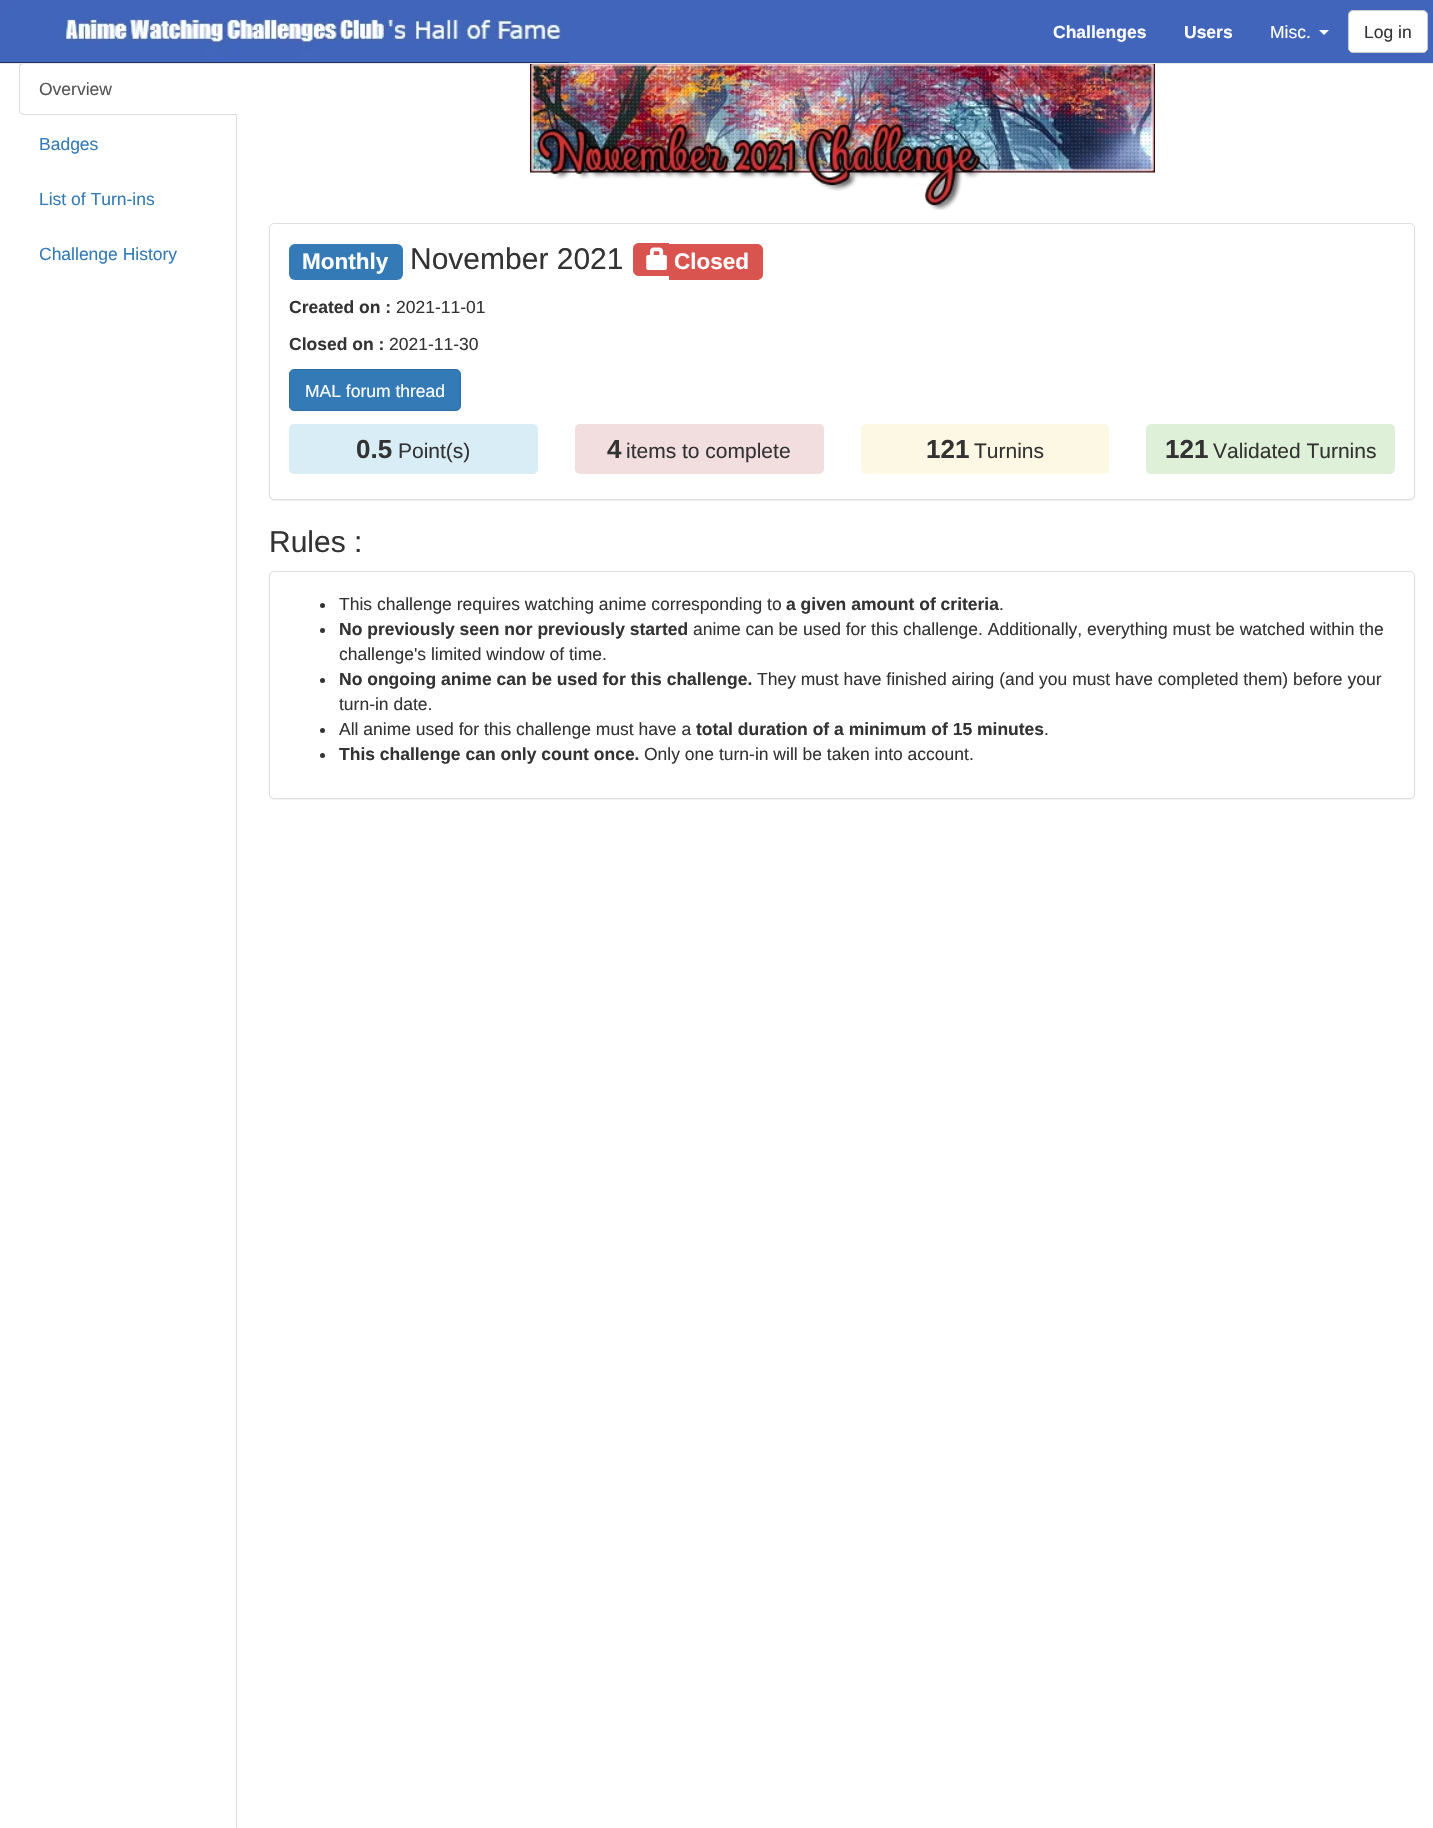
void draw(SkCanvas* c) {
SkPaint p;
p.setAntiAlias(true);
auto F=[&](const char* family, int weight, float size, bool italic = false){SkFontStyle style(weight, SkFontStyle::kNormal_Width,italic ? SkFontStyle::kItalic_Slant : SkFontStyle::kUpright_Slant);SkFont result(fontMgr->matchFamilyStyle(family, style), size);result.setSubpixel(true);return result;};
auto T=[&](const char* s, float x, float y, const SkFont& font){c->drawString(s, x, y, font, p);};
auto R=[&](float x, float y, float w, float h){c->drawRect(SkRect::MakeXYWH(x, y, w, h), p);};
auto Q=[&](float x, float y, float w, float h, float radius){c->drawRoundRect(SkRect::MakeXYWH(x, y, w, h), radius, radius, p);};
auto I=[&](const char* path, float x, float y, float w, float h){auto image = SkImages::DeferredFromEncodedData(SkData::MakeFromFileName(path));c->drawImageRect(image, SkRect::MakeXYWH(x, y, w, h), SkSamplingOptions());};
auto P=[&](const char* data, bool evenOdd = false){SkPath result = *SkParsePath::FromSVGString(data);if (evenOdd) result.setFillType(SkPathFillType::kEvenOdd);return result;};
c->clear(0xffffffff);
p.setColor(0xff4065ba);
R(569,0,864,63);
p.setColor(0xffdddddd);
c->drawPath(P("M24 64l-3 1l-1-1l2-2h216l-2 2z"),p);
p.setColor(0xffffffff);
c->drawPath(P("M238 62l-2 2v50l2 1z"),p);
p.setColor(0xffe7e7e7);
R(0,63,1433,1);
p.setColor(0xff203266);
R(0,62,569,1);
I("1.png",0,0,569,62);
auto f1 = F("Liberation Sans",700,17.5);
p.setColor(0xffffffff);
T("Challenges",1053,38,f1);
T("Users",1184,38,f1);
auto f2 = F("Liberation Sans",400,17.5);
T("Misc.",1270,38,f2);
c->drawPath(P("M1319 30h10l-5 5z"),p);
c->drawRoundRect(SkRect::MakeXYWH(1348.5,10.5,79,42),4.5,4.5,p);
p.setStroke(true);
p.setStrokeWidth(1);
p.setColor(0xffcccccc);
c->drawRoundRect(SkRect::MakeXYWH(1348.5,10.5,79,42),4.5,4.5,p);
p.setStroke(false);
p.setColor(0xff333333);
T("Log in",1364,38,f2);
p.setColor(0xffdddddd);
R(236,115,1,1713);
c->drawPath(P("M238 115l-2-1h-212c-1 0-2-1-3-1h-1c1 1 2 2 4 2z"),p);
c->drawPath(P("M20 113c-1 0-1-2-1-3v-42c0-1 0-3 1-4l1 1c-1 1-1 2-1 3v42c0 1 0 2 1 3z"),p);
p.setColor(0xff555555);
T("Overview",39,95,f2);
p.setColor(0xff337ab7);
T("Badges",39,150,f2);
T("List of Turn-ins",39,205,f2);
T("Challenge History",39,260,f2);
I("2.png",530,64,625,146);
p.setColor(0x0d000000);
p.setMaskFilter(SkMaskFilter::MakeBlur(kNormal_SkBlurStyle, .5));
c->drawRoundRect(SkRect::MakeXYWH(269,224,1146,277),5,5,p);
p.setMaskFilter(nullptr);
p.setColor(0xffffffff);
c->drawRoundRect(SkRect::MakeXYWH(269.5,223.5,1145,276),4.5,4.5,p);
p.setStroke(true);
p.setColor(0xffdddddd);
c->drawRoundRect(SkRect::MakeXYWH(269.5,223.5,1145,276),4.5,4.5,p);
p.setStroke(false);
p.setColor(0xff337ab7);
Q(289,244,114,36,6);
auto f3 = F("Liberation Sans",700,22.5);
p.setColor(0xffffffff);
T("Monthly",302,269,f3);
auto f4 = F("Liberation Sans",400,30);
p.setColor(0xff333333);
T("November 2021",410,269,f4);
p.setColor(0xffd9534f);
c->drawPath(P("M639 243h30v33h-30c-3.5 0-6-2.5-6-6v-21c0-3.5 2.5-6 6-6z"),p);
c->drawPath(P("M669 244h88c3.5 0 6 2.5 6 6v24c0 3.5-2.5 6-6 6h-88z"),p);
I("3.png",646,247,21,23);
p.setColor(0xffffffff);
T("Closed",674,269,f3);
p.setColor(0xff333333);
T("Created on :",289,313,f1);
T("2021-11-01",396,313,f2);
T("Closed on :",289,350,f1);
T("2021-11-30",389,350,f2);
p.setColor(0xff337ab7);
c->drawRoundRect(SkRect::MakeXYWH(289.5,369.5,171,41),4.5,4.5,p);
p.setStroke(true);
p.setColor(0xff2e6da4);
c->drawRoundRect(SkRect::MakeXYWH(289.5,369.5,171,41),4.5,4.5,p);
p.setStroke(false);
p.setColor(0xffffffff);
T("MAL forum thread",305,397,f2);
p.setColor(0xffd9edf7);
Q(289,424,249,50,5);
auto f5 = F("Liberation Sans",700,26);
p.setColor(0xff333333);
T("0.5",356,458,f5);
auto f6 = F("Liberation Sans",400,21);
T("Point(s)",398,458,f6);
p.setColor(0xfff2dede);
Q(575,424,249,50,5);
p.setColor(0xff333333);
T("4",607,458,f5);
T("items to complete",626,458,f6);
p.setColor(0xfffcf8e3);
Q(861,424,248,50,5);
p.setColor(0xff333333);
T("121",926,458,f5);
T("Turnins",974,458,f6);
p.setColor(0xffdff0d8);
Q(1146,424,249,50,5);
p.setColor(0xff333333);
T("121",1165,458,f5);
T("Validated Turnins",1213,458,f6);
T("Rules :",269,552,f4);
p.setColor(0x0d000000);
p.setMaskFilter(SkMaskFilter::MakeBlur(kNormal_SkBlurStyle, .5));
c->drawRoundRect(SkRect::MakeXYWH(269,573,1146,227),5,5,p);
p.setMaskFilter(nullptr);
p.setColor(0xffffffff);
c->drawRoundRect(SkRect::MakeXYWH(269.5,571.5,1145,227),4.5,4.5,p);
p.setStroke(true);
p.setColor(0xffdddddd);
c->drawRoundRect(SkRect::MakeXYWH(269.5,571.5,1145,227),4.5,4.5,p);
p.setStroke(false);
p.setColor(0xff333333);
c->drawCircle(322.5,605.5,2.5,p);
T("This challenge requires watching anime corresponding to",339,610,f2);
T("a given amount of criteria",786,610,f1);
T(".",999,610,f2);
c->drawCircle(322.5,630.5,2.5,p);
T("No previously seen nor previously started",339,635,f1);
T("anime can be used for this challenge. Additionally, everything must be watched within the",693,635,f2);
T("challenge's limited window of time.",339,660,f2);
c->drawCircle(322.5,680.5,2.5,p);
T("No ongoing anime can be used for this challenge.",339,685,f1);
T("They must have finished airing (and you must have completed them) before your",757,685,f2);
T("turn-in date.",339,710,f2);
c->drawCircle(322.5,730.5,2.5,p);
T("All anime used for this challenge must have a",339,735,f2);
T("total duration of a minimum of 15 minutes",696,735,f1);
T(".",1044,735,f2);
c->drawCircle(322.5,755.5,2.5,p);
T("This challenge can only count once.",339,760,f1);
T("Only one turn-in will be taken into account.",644,760,f2);
}
